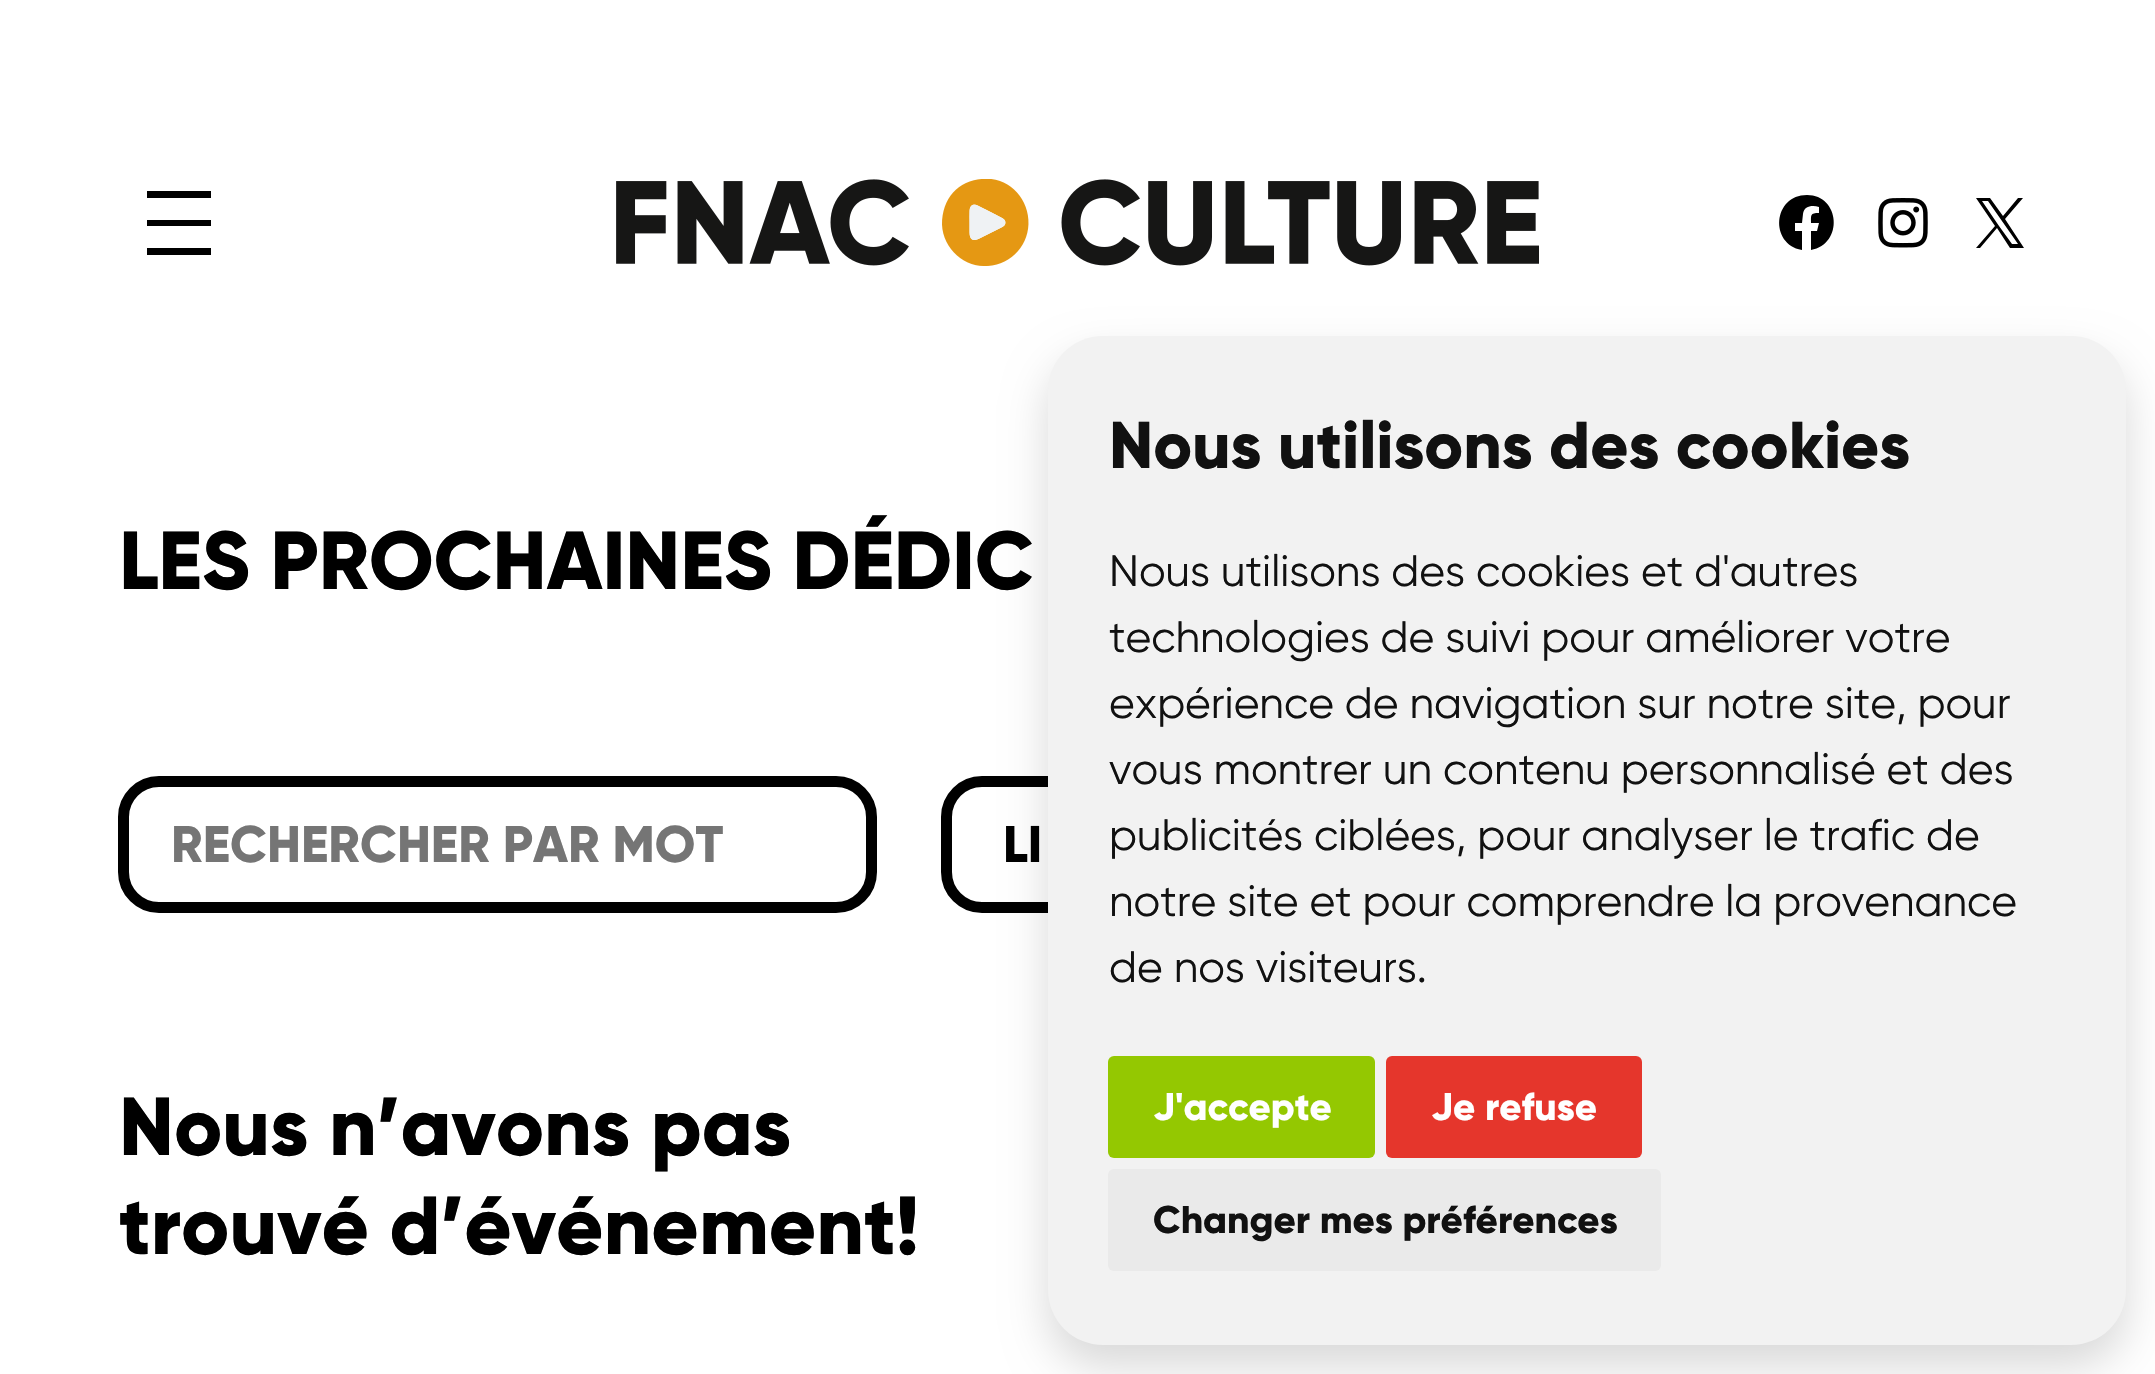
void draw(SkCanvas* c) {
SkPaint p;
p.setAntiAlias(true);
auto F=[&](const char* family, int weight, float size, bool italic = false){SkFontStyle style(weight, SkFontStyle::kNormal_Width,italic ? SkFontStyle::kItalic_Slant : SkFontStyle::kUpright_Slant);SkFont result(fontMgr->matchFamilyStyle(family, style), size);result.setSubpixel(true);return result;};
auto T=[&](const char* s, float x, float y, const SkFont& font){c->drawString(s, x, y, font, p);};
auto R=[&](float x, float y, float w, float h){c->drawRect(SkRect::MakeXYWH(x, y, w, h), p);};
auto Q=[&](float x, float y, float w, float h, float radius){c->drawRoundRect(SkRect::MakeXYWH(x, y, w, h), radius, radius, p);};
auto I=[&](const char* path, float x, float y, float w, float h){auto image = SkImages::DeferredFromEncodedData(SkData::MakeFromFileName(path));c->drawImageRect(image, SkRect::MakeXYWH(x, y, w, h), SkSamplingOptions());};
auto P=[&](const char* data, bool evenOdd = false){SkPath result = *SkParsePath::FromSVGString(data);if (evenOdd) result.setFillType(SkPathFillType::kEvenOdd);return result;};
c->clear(0xffffffff);
p.setColor(0xff000000);
R(147,191,64,7);
R(147,220,64,6);
R(147,248,64,7);
I("1.png",616,179,923,87);
c->drawPath(P("M1807 195c-34 0-38 49-5 55v-19h-7v-8h7l1-9c1-8 9-9 16-7v6c-9 0-8 2-8 10h8l-2 8h-6v19c33-6 29-55-4-55z"),p);
I("2.png",1878,198,50,50);
c->drawPath(P("M2005 219l18-21h-5l-15 18l-13-18h-14l19 28l-19 22h4l17-20l13 20h14zm-6 7l-17-25h6l30 43h-6z"),p);
auto f1 = F("Gilroy",800,82);
T("LES PROCHAINES DÉDIC",119,589,f1);
p.setStroke(true);
p.setStrokeWidth(11);
c->drawRoundRect(SkRect::MakeXYWH(123.5,781.5,748,126),35.5,35.5,p);
auto f2 = F("Gilroy",800,51.5);
p.setStroke(false);
p.setColor(0xff757575);
T("RECHERCHER PAR MOT",171,862,f2);
p.setStroke(true);
p.setColor(0xff000000);
c->drawRoundRect(SkRect::MakeXYWH(946.5,781.5,676,126),35.5,35.5,p);
p.setStroke(false);
T("LI",1003,862,f2);
T("Nous n’avons pas",119,1155,f1);
T("trouvé d’événement!",119,1254,f1);
p.setColor(0x26000000);
p.setMaskFilter(SkMaskFilter::MakeBlur(kNormal_SkBlurStyle, 22));
c->drawRoundRect(SkRect::MakeXYWH(1048,358,1078,1009),55,55,p);
p.setMaskFilter(nullptr);
p.setColor(0xfff2f2f2);
Q(1048,336,1078,1009,55);
auto f3 = F("Gilroy",800,66);
p.setColor(0xff111111);
T("Nous utilisons des cookies",1109,468,f3);
auto f4 = F("Gilroy",400,44);
T("Nous utilisons des cookies et d'autres",1109,586,f4);
T("technologies de suivi pour améliorer votre",1109,652,f4);
T("expérience de navigation sur notre site, pour",1109,718,f4);
T("vous montrer un contenu personnalisé et des",1109,784,f4);
T("publicités ciblées, pour analyser le trafic de",1109,850,f4);
T("notre site et pour comprendre la provenance",1109,916,f4);
T("de nos visiteurs.",1109,982,f4);
p.setColor(0xff94c801);
Q(1108,1056,267,102,6);
auto f5 = F("Gilroy",800,38.5);
p.setColor(0xffffffff);
T("J'accepte",1153,1120,f5);
p.setColor(0xffe5362c);
Q(1386,1056,256,102,6);
p.setColor(0xffffffff);
T("Je refuse",1431,1120,f5);
p.setColor(0xffeaeaea);
Q(1108,1169,553,102,6);
p.setColor(0xff111111);
T("Changer mes préférences",1153,1233,f5);
}
